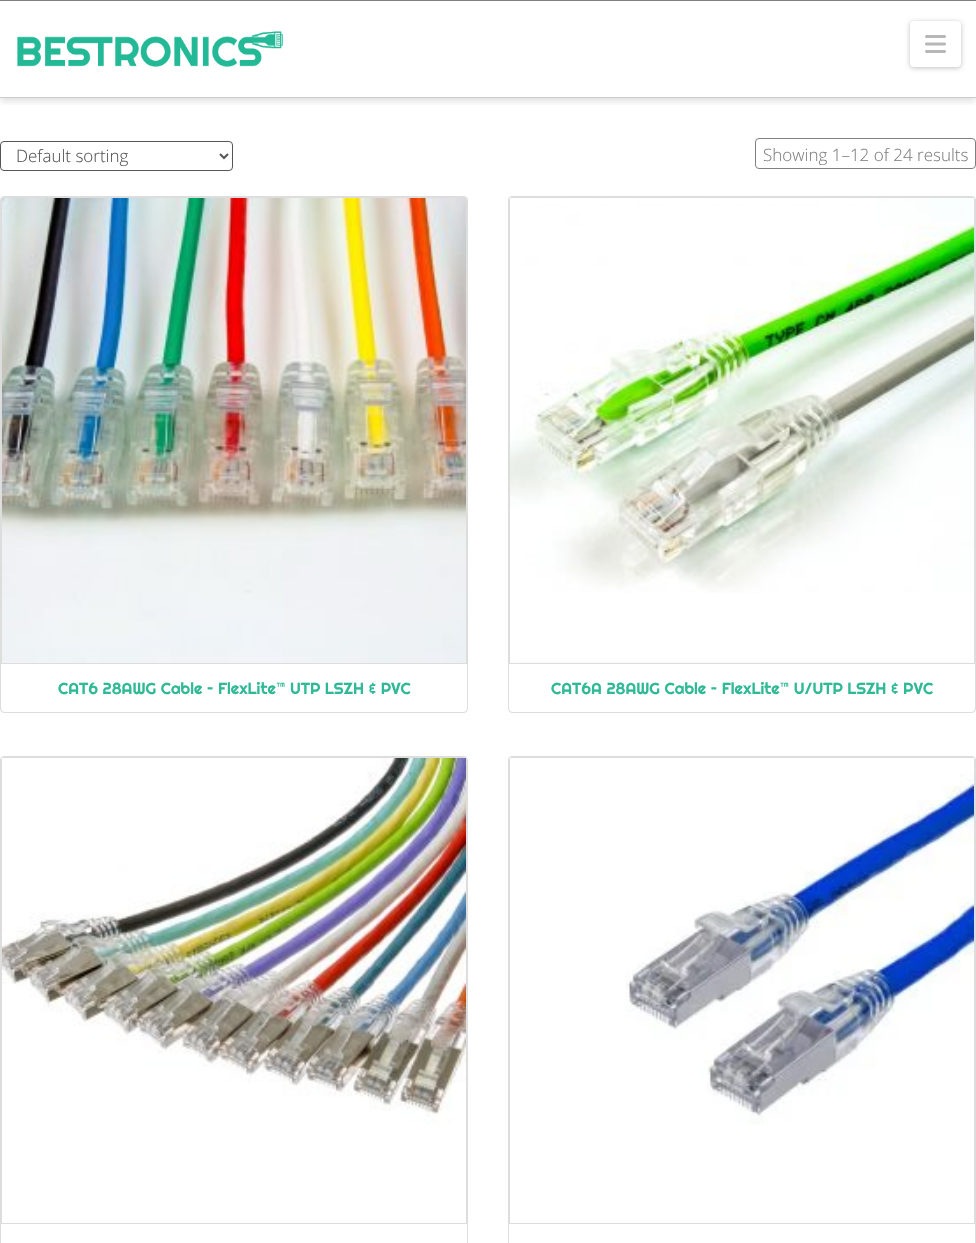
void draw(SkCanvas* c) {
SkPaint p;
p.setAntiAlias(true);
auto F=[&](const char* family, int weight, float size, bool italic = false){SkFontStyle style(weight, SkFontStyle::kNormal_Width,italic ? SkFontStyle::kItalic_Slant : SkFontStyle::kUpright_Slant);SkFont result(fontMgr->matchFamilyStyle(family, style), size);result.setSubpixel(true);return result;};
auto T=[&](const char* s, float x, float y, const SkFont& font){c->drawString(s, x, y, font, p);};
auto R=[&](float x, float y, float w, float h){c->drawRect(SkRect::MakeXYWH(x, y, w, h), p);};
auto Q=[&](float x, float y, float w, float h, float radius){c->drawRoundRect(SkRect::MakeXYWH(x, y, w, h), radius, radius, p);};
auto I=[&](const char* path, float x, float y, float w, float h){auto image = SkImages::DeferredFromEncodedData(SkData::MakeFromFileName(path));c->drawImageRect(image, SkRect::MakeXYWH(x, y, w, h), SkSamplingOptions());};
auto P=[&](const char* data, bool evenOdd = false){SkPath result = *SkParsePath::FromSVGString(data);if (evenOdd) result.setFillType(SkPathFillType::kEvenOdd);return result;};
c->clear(0xffffffff);
c->save();
c->clipRect(SkRect::MakeXYWH(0,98,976,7));
p.setColor(0x21000000);
p.setMaskFilter(SkMaskFilter::MakeBlur(kNormal_SkBlurStyle, 3.5));
c->drawRect(SkRect::MakeXYWH(0,3,976,98),p);
p.setMaskFilter(nullptr);
c->restore();
p.setColor(0xffcccccc);
R(0,97,976,1);
p.setColor(0xff808080);
R(0,0,976,1);
I("1.png",17,31,266,36);
p.setColor(0x40000000);
p.setMaskFilter(SkMaskFilter::MakeBlur(kNormal_SkBlurStyle, 2.5));
c->drawRoundRect(SkRect::MakeXYWH(910,22,51,46),4,4,p);
p.setMaskFilter(nullptr);
p.setColor(0xffffffff);
Q(910,21,51,46,4);
I("2.png",925,35,21,18);
p.setStroke(true);
p.setStrokeWidth(1);
p.setColor(0xff555555);
c->drawRoundRect(SkRect::MakeXYWH(.5,141.5,232,29),3.5,3.5,p);
p.setStrokeWidth(2);
c->drawPath(P("M220 154l4 4l4-4"),p);
auto f1 = F("Open Sans",300,17);
p.setStroke(false);
T("Default sorting",16,162,f1);
p.setStroke(true);
p.setStrokeWidth(1);
p.setColor(0xff808080);
c->drawRoundRect(SkRect::MakeXYWH(755.5,138.5,220,30),3.5,3.5,p);
p.setStroke(false);
T("Showing 1–12 of 24 results",763,161,f1);
p.setStroke(true);
p.setColor(0xffdddddd);
c->drawRoundRect(SkRect::MakeXYWH(.5,196.5,467,516),3.5,3.5,p);
c->save();
c->clipPath(P("M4 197h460c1.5 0 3 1.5 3 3v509c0 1.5-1.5 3-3 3h-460c-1.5 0-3-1.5-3-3v-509c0-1.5 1.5-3 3-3z"),true);
p.setStroke(false);
p.setColor(0x21000000);
p.setMaskFilter(SkMaskFilter::MakeBlur(kNormal_SkBlurStyle, 3.5));
c->drawRoundRect(SkRect::MakeXYWH(1,667,466,48),4,4,p);
p.setMaskFilter(nullptr);
c->restore();
p.setColor(0xffdddddd);
c->drawPath(P("M4 197c-2 0-3 1-3 3v464h466v-464c0-2-1-3-3-3zm-2 1v465h464v-465z",true),p);
I("3.png",2,198,464,465);
c->save();
c->clipPath(P("M4 197h460c1.5 0 3 1.5 3 3v509c0 1.5-1.5 3-3 3h-460c-1.5 0-3-1.5-3-3v-509c0-1.5 1.5-3 3-3z"),true);
p.setColor(0xffffffff);
c->drawPath(P("M1 664h466v44c0 2-2 4-4 4h-458c-2 0-4-2-4-4z"),p);
c->restore();
auto f2 = F("Righteous",400,16);
p.setColor(0xff2fb996);
T("CAT6 28AWG Cable – FlexLite™ UTP LSZH & PVC",58,694,f2);
p.setStroke(true);
p.setColor(0xffdddddd);
c->drawRoundRect(SkRect::MakeXYWH(508.5,196.5,467,516),3.5,3.5,p);
c->save();
c->clipPath(P("M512 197h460c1.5 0 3 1.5 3 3v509c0 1.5-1.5 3-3 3h-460c-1.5 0-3-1.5-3-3v-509c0-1.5 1.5-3 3-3z"),true);
p.setStroke(false);
p.setColor(0x21000000);
p.setMaskFilter(SkMaskFilter::MakeBlur(kNormal_SkBlurStyle, 3.5));
c->drawRoundRect(SkRect::MakeXYWH(509,667,466,48),4,4,p);
p.setMaskFilter(nullptr);
c->restore();
p.setColor(0xffdddddd);
c->drawPath(P("M512 197c-2 0-3 1-3 3v464h466v-464c0-2-1-3-3-3zm-2 1v465h464v-465z",true),p);
I("4.png",510,198,464,395);
c->save();
c->clipPath(P("M512 197h460c1.5 0 3 1.5 3 3v509c0 1.5-1.5 3-3 3h-460c-1.5 0-3-1.5-3-3v-509c0-1.5 1.5-3 3-3z"),true);
p.setColor(0xffffffff);
c->drawPath(P("M509 664h466v44c0 2-2 4-4 4h-458c-2 0-4-2-4-4z"),p);
c->restore();
p.setColor(0xff2fb996);
T("CAT6A 28AWG Cable – FlexLite™ U/UTP LSZH & PVC",551,694,f2);
p.setStroke(true);
p.setColor(0xffdddddd);
c->drawRoundRect(SkRect::MakeXYWH(.5,756.5,467,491),3.5,3.5,p);
p.setStroke(false);
c->drawPath(P("M4 757c-2 0-3 1-3 3v464h466v-464c0-2-1-3-3-3zm-2 1v465h464v-465z",true),p);
I("5.png",2,758,464,366);
p.setStroke(true);
c->drawRoundRect(SkRect::MakeXYWH(508.5,756.5,467,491),3.5,3.5,p);
p.setStroke(false);
c->drawPath(P("M512 757c-2 0-3 1-3 3v464h466v-464c0-2-1-3-3-3zm-2 1v465h464v-465z",true),p);
I("6.png",625,773,349,352);
}
